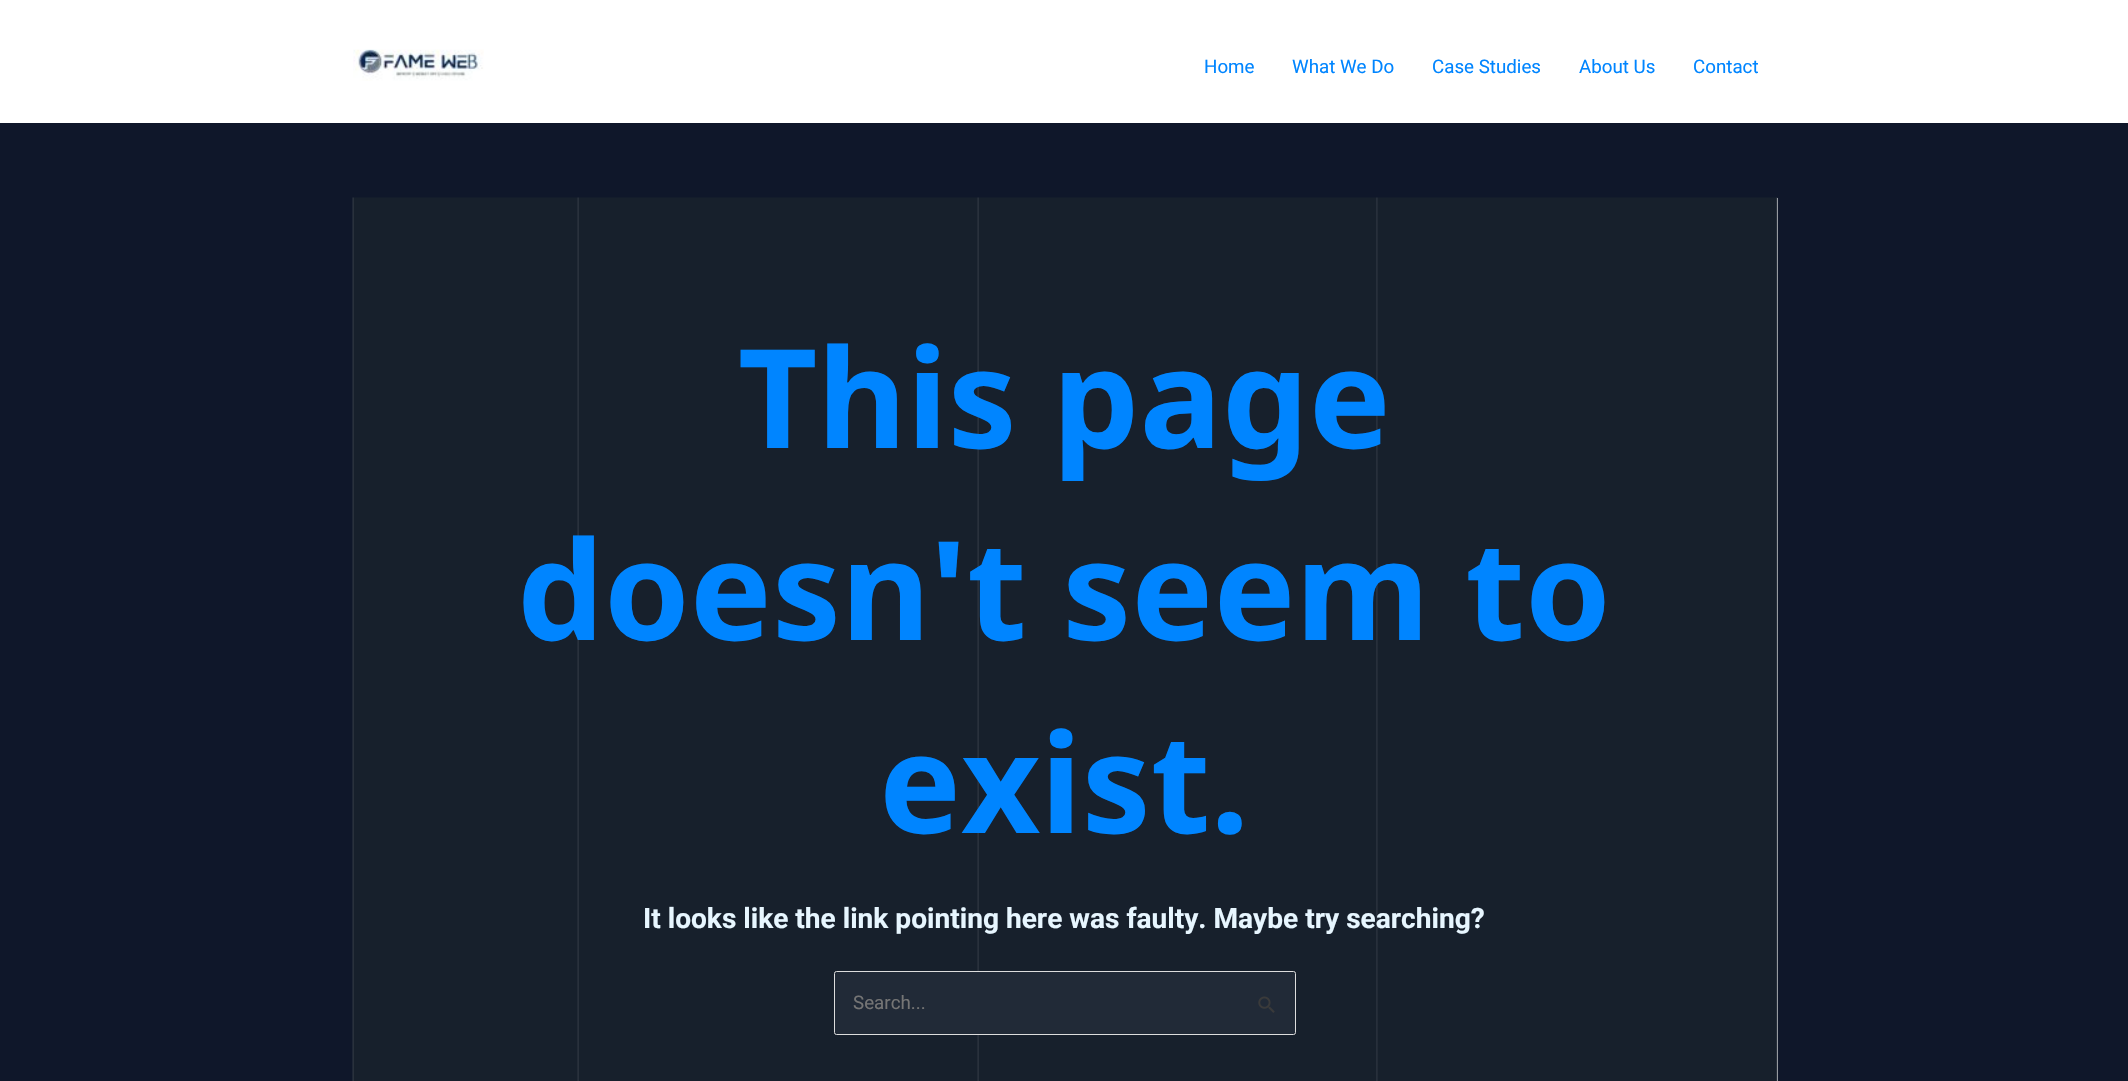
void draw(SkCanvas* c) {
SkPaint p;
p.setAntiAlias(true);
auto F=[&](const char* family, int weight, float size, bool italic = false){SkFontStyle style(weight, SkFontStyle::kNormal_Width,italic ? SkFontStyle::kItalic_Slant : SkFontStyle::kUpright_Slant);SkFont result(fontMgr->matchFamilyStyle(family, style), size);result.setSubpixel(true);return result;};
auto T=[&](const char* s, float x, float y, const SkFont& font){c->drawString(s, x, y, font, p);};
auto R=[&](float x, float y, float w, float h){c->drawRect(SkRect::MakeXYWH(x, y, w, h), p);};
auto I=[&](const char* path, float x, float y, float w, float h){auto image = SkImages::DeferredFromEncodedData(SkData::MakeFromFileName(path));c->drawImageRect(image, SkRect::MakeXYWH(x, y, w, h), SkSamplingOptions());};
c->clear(0xff0f172a);
p.setColor(0xffffffff);
R(0,0,2128,123);
I("1.png",353,49,131,32);
auto f1 = F("Roboto",400,18.75);
p.setColor(0xff0085ff);
T("Home",1204,73,f1);
T("What We Do",1292,73,f1);
T("Case Studies",1432,73,f1);
T("About Us",1579,73,f1);
T("Contact",1693,73,f1);
p.setColor(0xffffffff);
R(1777,198,1,883);
I("2.png",352,197,1426,884);
auto f2 = F("Noto Sans",700,137.5);
p.setColor(0xff0085ff);
T("This page",738,448,f2);
T("doesn't seem to",517,640,f2);
T("exist.",879,833,f2);
auto f3 = F("Roboto",700,28.1);
p.setColor(0xffe7f6ff);
T("It looks like the link pointing here was faulty. Maybe try searching?",643,928,f3);
p.setColor(0xff212a37);
c->drawRoundRect(SkRect::MakeXYWH(834.5,971.5,461,63),2,2,p);
p.setStroke(true);
p.setStrokeWidth(1);
p.setColor(0xffdddddd);
c->drawRoundRect(SkRect::MakeXYWH(834.5,971.5,461,63),2,2,p);
p.setStroke(false);
p.setColor(0xff757575);
T("Search...",853,1009,f1);
I("3.png",1258,996,17,17);
}
